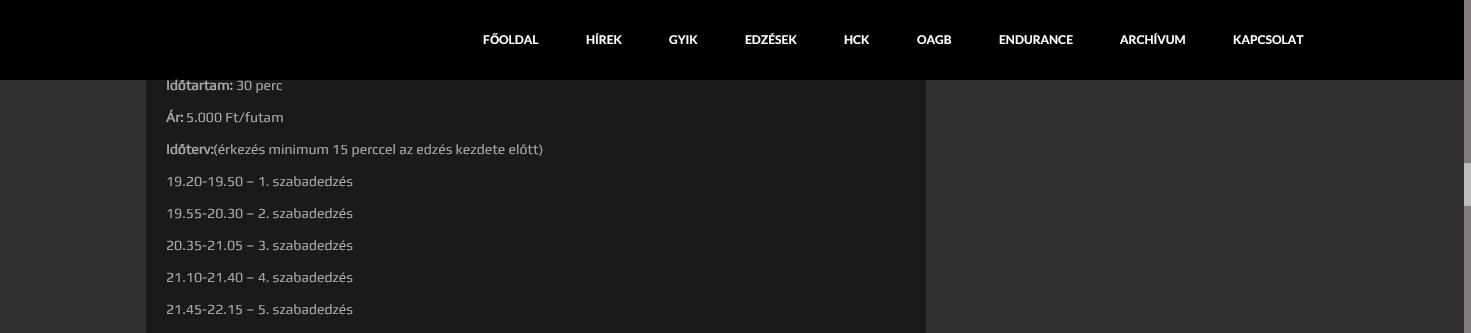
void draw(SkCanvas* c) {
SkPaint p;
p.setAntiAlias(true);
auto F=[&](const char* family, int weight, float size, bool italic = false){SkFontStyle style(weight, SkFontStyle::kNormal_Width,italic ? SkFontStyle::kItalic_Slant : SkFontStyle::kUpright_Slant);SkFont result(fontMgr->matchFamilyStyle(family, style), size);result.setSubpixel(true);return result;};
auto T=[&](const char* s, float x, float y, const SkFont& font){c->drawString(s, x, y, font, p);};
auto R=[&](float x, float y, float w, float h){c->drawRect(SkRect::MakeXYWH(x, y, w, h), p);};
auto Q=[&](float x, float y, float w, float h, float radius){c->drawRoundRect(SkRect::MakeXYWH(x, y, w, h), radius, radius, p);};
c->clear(0xff323232);
p.setColor(0xff000000);
R(0,0,1464,80);
auto f1 = F("Lato",700,12);
p.setColor(0xffffffff);
T("F",483,44,f1);
auto f2 = F("Liberation Sans",700,12);
T("Ő",490,44,f2);
T("OLDAL",499,44,f1);
T("HÍREK",586,44,f1);
T("GYIK",669,44,f1);
T("EDZÉSEK",745,44,f1);
T("HCK",844,44,f1);
T("OAGB",917,44,f1);
T("ENDURANCE",999,44,f1);
T("ARCHÍVUM",1120,44,f1);
T("KAPCSOLAT",1233,44,f1);
p.setColor(0xff827b7d);
R(1464,0,7,333);
p.setColor(0xffbdbdbd);
Q(1464,163,7,43,1);
p.setColor(0xff1a1a1a);
R(146,80,780,253);
auto f3 = F("Play",700,14);
p.setColor(0xffa6a6a6);
T("Időtartam:",166,90,f3);
auto f4 = F("Play",400,14);
T("30 perc",236,90,f4);
T("Ár:",166,122,f3);
T("5.000 Ft/futam",186,122,f4);
T("Időterv:",166,154,f3);
T("(érkezés minimum 15 perccel az edzés kezdete előtt)",213,154,f4);
T("19.20-19.50 – 1. szabadedzés",166,186,f4);
T("19.55-20.30 – 2. szabadedzés",166,218,f4);
T("20.35-21.05 – 3. szabadedzés",166,250,f4);
T("21.10-21.40 – 4. szabadedzés",166,282,f4);
T("21.45-22.15 – 5. szabadedzés",166,314,f4);
}
